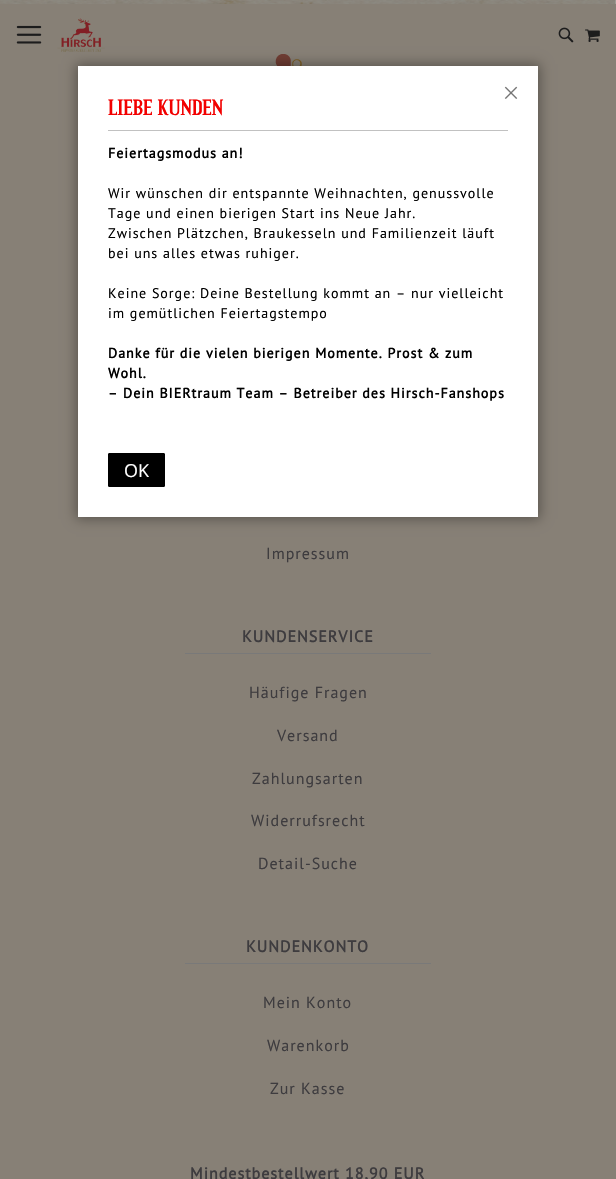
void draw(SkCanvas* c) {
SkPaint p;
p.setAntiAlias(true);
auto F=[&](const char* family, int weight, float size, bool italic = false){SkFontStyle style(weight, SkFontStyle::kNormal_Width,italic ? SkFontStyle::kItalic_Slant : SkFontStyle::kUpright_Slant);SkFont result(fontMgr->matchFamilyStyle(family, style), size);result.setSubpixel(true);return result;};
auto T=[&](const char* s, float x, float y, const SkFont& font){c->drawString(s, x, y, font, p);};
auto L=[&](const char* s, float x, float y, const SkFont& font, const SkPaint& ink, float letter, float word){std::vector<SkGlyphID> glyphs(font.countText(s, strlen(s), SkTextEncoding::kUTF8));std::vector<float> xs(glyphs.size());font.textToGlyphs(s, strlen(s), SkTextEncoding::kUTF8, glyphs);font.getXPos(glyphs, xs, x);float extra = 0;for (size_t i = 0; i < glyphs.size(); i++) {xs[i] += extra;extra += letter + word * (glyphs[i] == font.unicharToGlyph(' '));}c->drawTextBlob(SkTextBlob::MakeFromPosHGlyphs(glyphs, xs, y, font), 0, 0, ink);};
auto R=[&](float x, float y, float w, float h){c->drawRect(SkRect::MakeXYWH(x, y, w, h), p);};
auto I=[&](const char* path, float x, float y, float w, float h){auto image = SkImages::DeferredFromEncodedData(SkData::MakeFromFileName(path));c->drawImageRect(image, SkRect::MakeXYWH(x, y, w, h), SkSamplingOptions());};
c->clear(0xffffffff);
I("1.png",0,0,616,4);
p.setColor(0xff878076);
R(0,4,616,1175);
I("4.png",57,18,48,34);
I("7.png",275,54,27,12);
p.setColor(0x59000000);
p.setMaskFilter(SkMaskFilter::MakeBlur(kNormal_SkBlurStyle, 6));
c->drawRect(SkRect::MakeXYWH(76,64,464,455),p);
p.setMaskFilter(nullptr);
p.setColor(0xffffffff);
R(78,66,460,451);
I("2.png",504,86,14,13);
p.setColor(0xffc1c1c1);
R(108,130,400,1);
auto f1 = F("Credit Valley",700,20);
p.setColor(0xfff20000);
T("LIEBE KUNDEN",108,115,f1);
auto f2 = F("PT Sans",700,14);
p.setColor(0xff000000);
L("Feiertagsmodus an!",108,158,f2,p,1,0);
auto f3 = F("PT Sans",400,14);
L("Wir wünschen dir entspannte Weihnachten, genussvolle",108,198,f3,p,1,0);
L("Tage und einen bierigen Start ins Neue Jahr.",108,218,f3,p,1,0);
L("Zwischen Plätzchen, Braukesseln und Familienzeit läuft",108,238,f3,p,1,0);
L("bei uns alles etwas ruhiger.",108,258,f3,p,1,0);
L("Keine Sorge: Deine Bestellung kommt an – nur vielleicht",108,298,f3,p,1,0);
L("im gemütlichen Feiertagstempo",108,318,f3,p,1,0);
L("Danke für die vielen bierigen Momente. Prost & zum",108,358,f2,p,1,0);
L("Wohl.",108,378,f2,p,1,0);
L("– Dein BIERtraum Team – Betreiber des Hirsch-Fanshops",108,398,f2,p,1,0);
c->drawRoundRect(SkRect::MakeXYWH(108.5,453.5,56,33),.5,.5,p);
p.setStroke(true);
p.setStrokeWidth(1);
c->drawRoundRect(SkRect::MakeXYWH(108.5,453.5,56,33),.5,.5,p);
auto f4 = F("Open Sans",400,18);
p.setStroke(false);
p.setColor(0xffffffff);
T("OK",124,477,f4);
I("3.png",16,25,26,19);
I("5.png",558,27,16,16);
I("6.png",585,29,15,13);
auto f5 = F("PT Sans",400,16);
p.setColor(0xff3e3c3f);
L("Impressum",266,559,f5,p,1,0);
auto f6 = F("PT Sans",700,16);
L("KUNDENSERVICE",242,642,f6,p,1,0);
p.setColor(0xff797979);
R(185,653,246,1);
p.setColor(0xff3e3c3f);
L("Häufige Fragen",249,698,f5,p,1,0);
L("Versand",277,741,f5,p,1,0);
L("Zahlungsarten",252,784,f5,p,1,0);
L("Widerrufsrecht",251,826,f5,p,1,0);
L("Detail-Suche",258,869,f5,p,1,0);
L("KUNDENKONTO",246,952,f6,p,1,0);
p.setColor(0xff797979);
R(185,963,246,1);
p.setColor(0xff3e3c3f);
L("Mein Konto",263,1008,f5,p,1,0);
L("Warenkorb",267,1051,f5,p,1,0);
L("Zur Kasse",270,1094,f5,p,1,0);
L("Mindestbestellwert 18,90 EUR",190,1179,f6,p,1,0);
}
